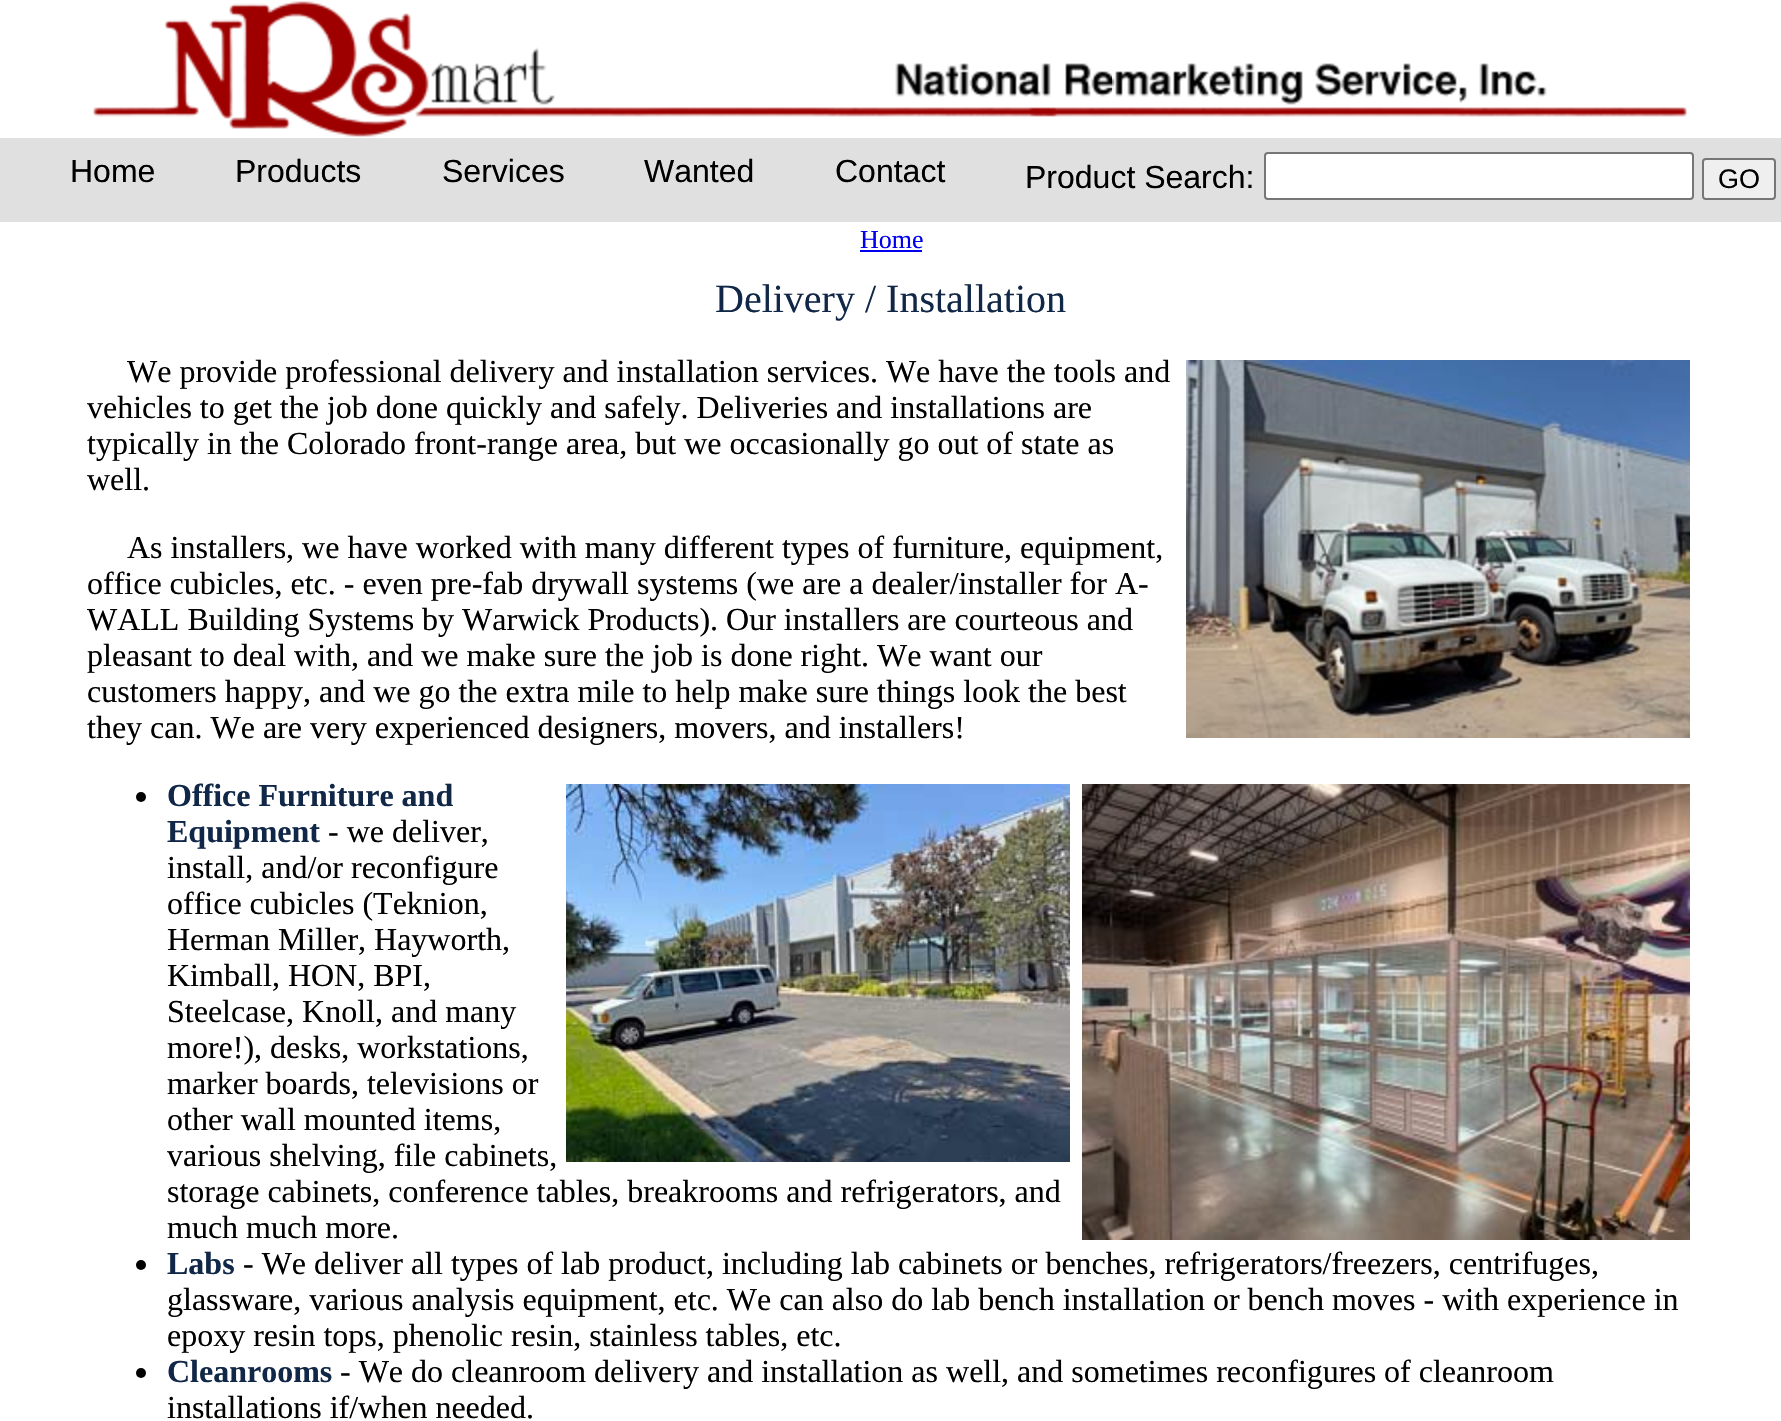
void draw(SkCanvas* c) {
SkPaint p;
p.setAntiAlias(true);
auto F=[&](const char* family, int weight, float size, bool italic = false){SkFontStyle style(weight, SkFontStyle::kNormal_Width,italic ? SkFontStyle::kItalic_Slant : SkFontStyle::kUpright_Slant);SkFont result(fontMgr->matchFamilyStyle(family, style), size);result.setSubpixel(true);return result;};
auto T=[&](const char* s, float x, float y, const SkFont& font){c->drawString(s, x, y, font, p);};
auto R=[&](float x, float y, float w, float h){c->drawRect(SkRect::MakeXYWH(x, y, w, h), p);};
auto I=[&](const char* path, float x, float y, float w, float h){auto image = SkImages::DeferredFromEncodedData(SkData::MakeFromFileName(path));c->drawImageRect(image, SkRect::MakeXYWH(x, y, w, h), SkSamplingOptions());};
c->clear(0xffffffff);
I("1.png",93,1,1594,136);
p.setColor(0xffe0e0e0);
R(0,138,1781,84);
auto f1 = F("Liberation Sans",400,32);
p.setColor(0xff000000);
T("Home",70,182,f1);
T("Products",235,182,f1);
T("Services",442,182,f1);
T("Wanted",644,182,f1);
T("Contact",835,182,f1);
T("Product Search:",1025,188,f1);
p.setColor(0xffffffff);
c->drawRoundRect(SkRect::MakeXYWH(1265,153,428,46),3,3,p);
p.setStroke(true);
p.setStrokeWidth(2);
p.setColor(0xff767676);
c->drawRoundRect(SkRect::MakeXYWH(1265,153,428,46),3,3,p);
p.setStroke(false);
p.setColor(0xffefefef);
c->drawRoundRect(SkRect::MakeXYWH(1703,159,72,40),3,3,p);
p.setStroke(true);
p.setColor(0xff767676);
c->drawRoundRect(SkRect::MakeXYWH(1703,159,72,40),3,3,p);
auto f2 = F("Liberation Sans",400,27);
p.setStroke(false);
p.setColor(0xff000000);
T("GO",1718,188,f2);
auto f3 = F("Liberation Serif",400,26);
p.setColor(0xff0000ee);
T("Home",860,248,f3);
R(860,250,62,2);
auto f4 = F("Liberation Serif",400,40);
p.setColor(0xff112747);
T("Delivery / Installation",715,312,f4);
auto f5 = F("Liberation Serif",400,32);
p.setColor(0xff000000);
T("We provide professional delivery and installation services. We have the tools and",127,382,f5);
I("2.png",1186,360,504,378);
T("vehicles to get the job done quickly and safely. Deliveries and installations are",87,418,f5);
T("typically in the Colorado front-range area, but we occasionally go out of state as",87,454,f5);
T("well.",87,490,f5);
T("As installers, we have worked with many different types of furniture, equipment,",127,558,f5);
T("office cubicles, etc. - even pre-fab drywall systems (we are a dealer/installer for A-",87,594,f5);
T("WALL Building Systems by Warwick Products). Our installers are courteous and",87,630,f5);
T("pleasant to deal with, and we make sure the job is done right. We want our",87,666,f5);
T("customers happy, and we go the extra mile to help make sure things look the best",87,702,f5);
T("they can. We are very experienced designers, movers, and installers!",87,738,f5);
c->drawCircle(141,797,5,p);
auto f6 = F("Liberation Serif",700,32);
p.setColor(0xff112747);
T("Office Furniture and",167,806,f6);
T("Equipment",167,842,f6);
p.setColor(0xff000000);
T("- we deliver,",328,842,f5);
T("install, and/or reconfigure",167,878,f5);
T("office cubicles (Teknion,",167,914,f5);
T("Herman Miller, Hayworth,",167,950,f5);
T("Kimball, HON, BPI,",167,986,f5);
T("Steelcase, Knoll, and many",167,1022,f5);
T("more!), desks, workstations,",167,1058,f5);
T("marker boards, televisions or",167,1094,f5);
T("other wall mounted items,",167,1130,f5);
T("various shelving, file cabinets,",167,1166,f5);
T("storage cabinets, conference tables, breakrooms and refrigerators, and",167,1202,f5);
T("much much more.",167,1238,f5);
c->drawCircle(141,1265,5,p);
p.setColor(0xff112747);
T("Labs",167,1274,f6);
p.setColor(0xff000000);
T("- We deliver all types of lab product, including lab cabinets or benches, refrigerators/freezers, centrifuges,",243,1274,f5);
T("glassware, various analysis equipment, etc. We can also do lab bench installation or bench moves - with experience in",167,1310,f5);
T("epoxy resin tops, phenolic resin, stainless tables, etc.",167,1346,f5);
c->drawCircle(141,1373,5,p);
p.setColor(0xff112747);
T("Cleanrooms",167,1382,f6);
p.setColor(0xff000000);
T("- We do cleanroom delivery and installation as well, and sometimes reconfigures of cleanroom",340,1382,f5);
T("installations if/when needed.",167,1418,f5);
I("3.png",566,784,504,378);
I("4.png",1082,784,608,456);
}
